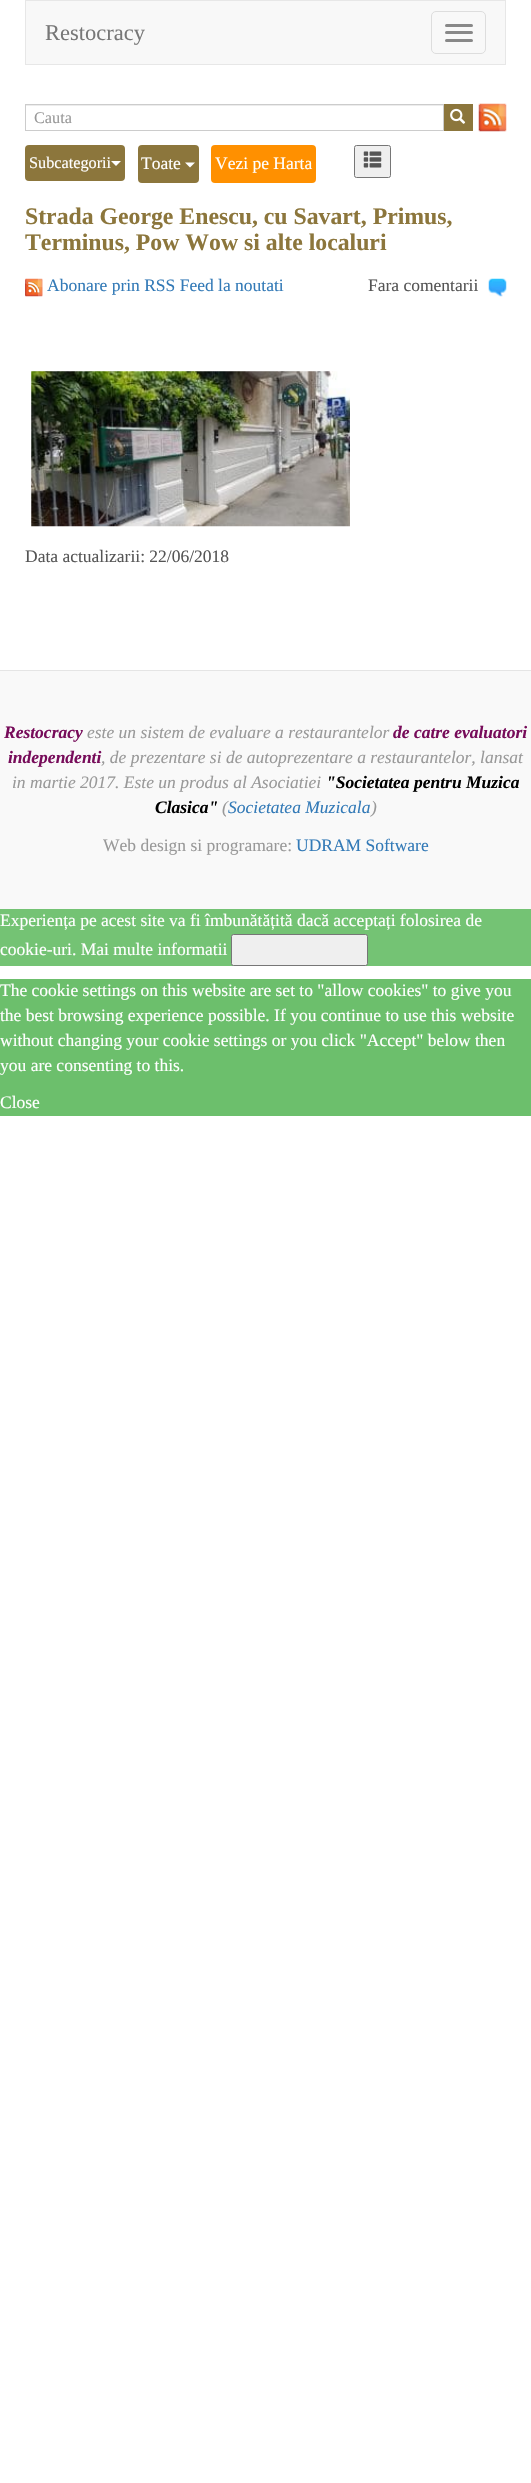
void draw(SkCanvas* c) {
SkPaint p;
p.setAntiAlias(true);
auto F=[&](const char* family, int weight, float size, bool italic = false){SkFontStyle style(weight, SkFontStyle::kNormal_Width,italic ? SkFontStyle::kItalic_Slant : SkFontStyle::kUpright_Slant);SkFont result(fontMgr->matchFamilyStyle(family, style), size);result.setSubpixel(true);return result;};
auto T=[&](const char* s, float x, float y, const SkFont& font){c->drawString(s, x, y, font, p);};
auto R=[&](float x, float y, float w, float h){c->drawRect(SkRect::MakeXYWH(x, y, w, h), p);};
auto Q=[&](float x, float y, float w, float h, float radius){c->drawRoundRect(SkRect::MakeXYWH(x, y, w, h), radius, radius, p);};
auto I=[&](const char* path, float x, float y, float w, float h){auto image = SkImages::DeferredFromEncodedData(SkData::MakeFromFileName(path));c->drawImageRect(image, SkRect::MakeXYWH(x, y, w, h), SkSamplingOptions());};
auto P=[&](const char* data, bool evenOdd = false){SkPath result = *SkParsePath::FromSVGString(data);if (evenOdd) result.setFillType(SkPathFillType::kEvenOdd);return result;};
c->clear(0xffffffff);
p.setColor(0xfff8f8f8);
c->drawRect(SkRect::MakeXYWH(25.5,.5,480,64),p);
p.setStroke(true);
p.setStrokeWidth(1);
p.setColor(0xffe7e7e7);
c->drawRect(SkRect::MakeXYWH(25.5,.5,480,64),p);
auto f1 = F("Liberation Serif",400,22.5);
p.setStroke(false);
p.setColor(0xff777777);
T("Restocracy",45,40,f1);
p.setStroke(true);
p.setColor(0xffdddddd);
c->drawRoundRect(SkRect::MakeXYWH(431.5,11.5,54,42),4.5,4.5,p);
p.setStroke(false);
p.setColor(0xff888888);
Q(445,24,28,3,1.5);
Q(445,31,28,3,1.5);
Q(445,39,28,3,1.5);
p.setColor(0xffececec);
R(26,105,417,1);
p.setStroke(true);
p.setColor(0xffcccccc);
c->drawRect(SkRect::MakeXYWH(25.5,104.5,418,26),p);
auto f2 = F("Liberation Serif",400,16.25);
p.setStroke(false);
p.setColor(0xff999999);
T("Cauta",34,123,f2);
p.setColor(0xff8c763c);
R(444,104,29,27);
I("1.png",450,108,16,16);
I("2.png",478,103,29,29);
Q(25,145,100,36,4);
p.setColor(0xffffffff);
T("Subcategorii",29,168,f2);
c->drawPath(P("M111 161h10l-5 5z"),p);
p.setColor(0xff8c763c);
Q(138,145,61,38,4);
auto f3 = F("Liberation Serif",400,17.5);
p.setColor(0xffffffff);
T("Toate",141,169,f3);
c->drawPath(P("M185 162.5h10l-5 5z"),p);
p.setColor(0xffff9000);
Q(211,145,105,38,4);
p.setColor(0xffffffff);
T("Vezi pe Harta",215,169,f3);
p.setColor(0xffefefef);
c->drawRoundRect(SkRect::MakeXYWH(354.5,145.5,36,32),2,2,p);
p.setStroke(true);
p.setColor(0xff767676);
c->drawRoundRect(SkRect::MakeXYWH(354.5,145.5,36,32),2,2,p);
I("3.png",363,151,19,17);
auto f4 = F("Liberation Serif",700,23.75);
p.setStroke(false);
p.setColor(0xff8c763c);
T("Strada George Enescu, cu Savart, Primus,",25,224,f4);
T("Terminus, Pow Wow si alte localuri",25,250,f4);
I("4.png",25,278,18,19);
p.setColor(0xff337ab7);
T("Abonare prin RSS Feed la noutati",47,291,f3);
p.setColor(0xff555555);
T("Fara comentarii",368,291,f3);
I("5.png",488,278,19,19);
I("6.png",31,371,319,156);
T("Data actualizarii: 22/06/2018",25,562,f3);
p.setColor(0xfff9f9f9);
R(0,671,531,238);
p.setColor(0xffe5e5e5);
R(0,670,531,1);
auto f5 = F("Liberation Serif",700,17.5,true);
p.setColor(0xff770c5a);
T("Restocracy",4,738,f5);
auto f6 = F("Liberation Serif",400,17.5,true);
p.setColor(0xff999999);
T("este un sistem de evaluare a restaurantelor",87,738,f6);
p.setColor(0xff770c5a);
T("de catre evaluatori",393,738,f5);
T("independenti",8,763,f5);
p.setColor(0xff999999);
T(", de prezentare si de autoprezentare a restaurantelor, lansat",101,763,f6);
T("in martie 2017. Este un produs al Asociatiei",12,788,f6);
p.setColor(0xff000000);
T("\"Societatea pentru Muzica",326,788,f5);
T("Clasica\"",155,813,f5);
p.setColor(0xff999999);
T("(",222,813,f6);
p.setColor(0xff337ab7);
T("Societatea Muzicala",228,813,f6);
p.setColor(0xff999999);
T(")",371,813,f6);
T("Web design si programare:",103,851,f3);
p.setColor(0xff337ab7);
T("UDRAM Software",296,851,f3);
p.setColor(0xff74c374);
R(0,909,531,57);
p.setColor(0xffffffff);
T("Experiența pe acest site va fi îmbunătățită dacă acceptați folosirea de",0,926,f3);
T("cookie-uri. Mai multe informatii",0,955,f3);
p.setColor(0xffefefef);
c->drawRoundRect(SkRect::MakeXYWH(231.5,934.5,136,31),2,2,p);
p.setStroke(true);
p.setColor(0xff767676);
c->drawRoundRect(SkRect::MakeXYWH(231.5,934.5,136,31),2,2,p);
p.setStroke(false);
p.setColor(0xff6cbf6c);
R(0,979,531,137);
p.setColor(0xffffffff);
T("The cookie settings on this website are set to \"allow cookies\" to give you",0,996,f3);
T("the best browsing experience possible. If you continue to use this website",0,1021,f3);
T("without changing your cookie settings or you click \"Accept\" below then",0,1046,f3);
T("you are consenting to this.",0,1071,f3);
T("Close",0,1108,f3);
}
